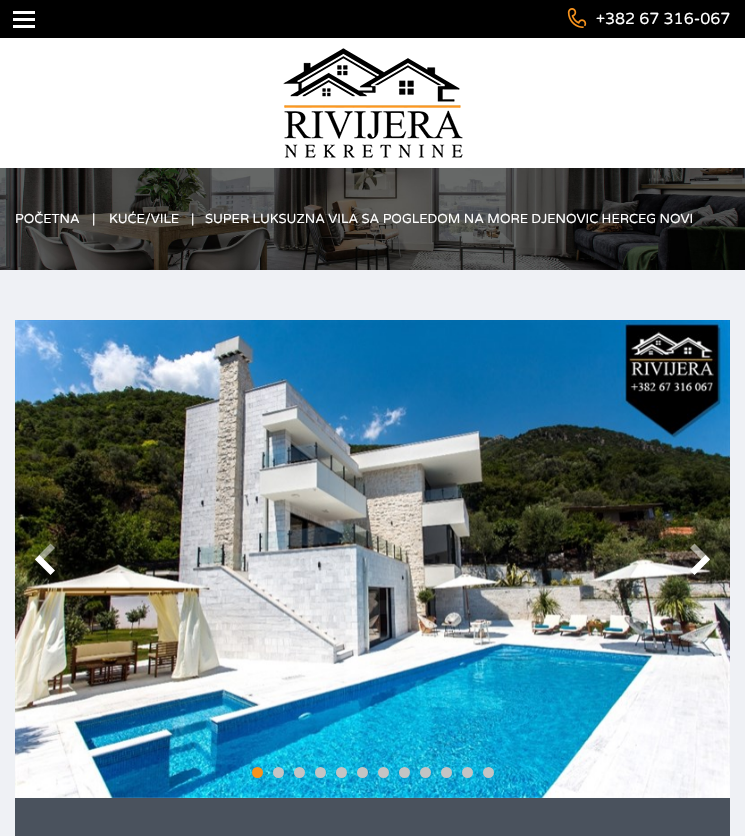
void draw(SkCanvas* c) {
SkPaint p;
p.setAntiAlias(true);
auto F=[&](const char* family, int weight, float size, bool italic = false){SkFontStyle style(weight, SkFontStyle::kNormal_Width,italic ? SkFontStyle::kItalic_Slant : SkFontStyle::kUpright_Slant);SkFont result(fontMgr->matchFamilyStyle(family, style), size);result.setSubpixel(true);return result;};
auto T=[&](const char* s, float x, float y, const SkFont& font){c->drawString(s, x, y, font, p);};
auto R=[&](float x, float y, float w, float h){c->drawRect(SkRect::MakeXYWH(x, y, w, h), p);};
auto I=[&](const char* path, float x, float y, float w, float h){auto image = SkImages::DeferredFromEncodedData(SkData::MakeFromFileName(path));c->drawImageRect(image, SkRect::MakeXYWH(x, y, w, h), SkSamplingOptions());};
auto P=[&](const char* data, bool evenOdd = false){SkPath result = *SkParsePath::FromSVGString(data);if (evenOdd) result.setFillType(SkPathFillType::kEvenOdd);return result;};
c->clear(0xffeff1f5);
p.setColor(0xff000000);
R(0,0,745,38);
p.setColor(0xffffffff);
R(13,11,22,3);
R(13,18,22,3);
R(13,25,22,3);
I("1.png",567,8,20,20);
auto f1 = F("Varela Round",400,16);
T("+382 67 316-067",596,24,f1);
R(0,38,745,130);
I("2.png",283,48,180,110);
I("3.png",0,168,745,102);
auto f2 = F("Varela Round",400,13);
T("POČETNA",15,223,f2);
T("|",92,223,f2);
T("KUĆE/VILE",109,223,f2);
T("|",191,223,f2);
T("SUPER LUKSUZNA VILA SA POGLEDOM NA MORE DJENOVIC HERCEG NOVI",205,223,f2);
I("4.png",15,320,715,478);
p.setColor(0x80ffffff);
c->drawPath(P("M55 548l-4.5-4.5l-15.5 15.5l4.5 4.5z"),p);
p.setColor(0xffffffff);
c->drawPath(P("M35 559.5l4.5-4.5l15.5 15.5l-4.5 4.5z"),p);
c->drawPath(P("M690 570.5l4.5 4.5l15.5-15.5l-4.5-4.5z",true),p);
p.setColor(0x80ffffff);
c->drawPath(P("M710 559l-4.5 4.5l-15.5-15.5l4.5-4.5z",true),p);
p.setColor(0xfff7931d);
c->drawCircle(257.5,772.5,5.5,p);
p.setColor(0xffc4c4c4);
c->drawCircle(278.5,772.5,5.5,p);
c->drawCircle(299.5,772.5,5.5,p);
c->drawCircle(320.5,772.5,5.5,p);
c->drawCircle(341.5,772.5,5.5,p);
c->drawCircle(362.5,772.5,5.5,p);
c->drawCircle(383.5,772.5,5.5,p);
c->drawCircle(404.5,772.5,5.5,p);
c->drawCircle(425.5,772.5,5.5,p);
c->drawCircle(446.5,772.5,5.5,p);
c->drawCircle(467.5,772.5,5.5,p);
c->drawCircle(488.5,772.5,5.5,p);
p.setColor(0xff4a525d);
R(15,798,715,38);
}
